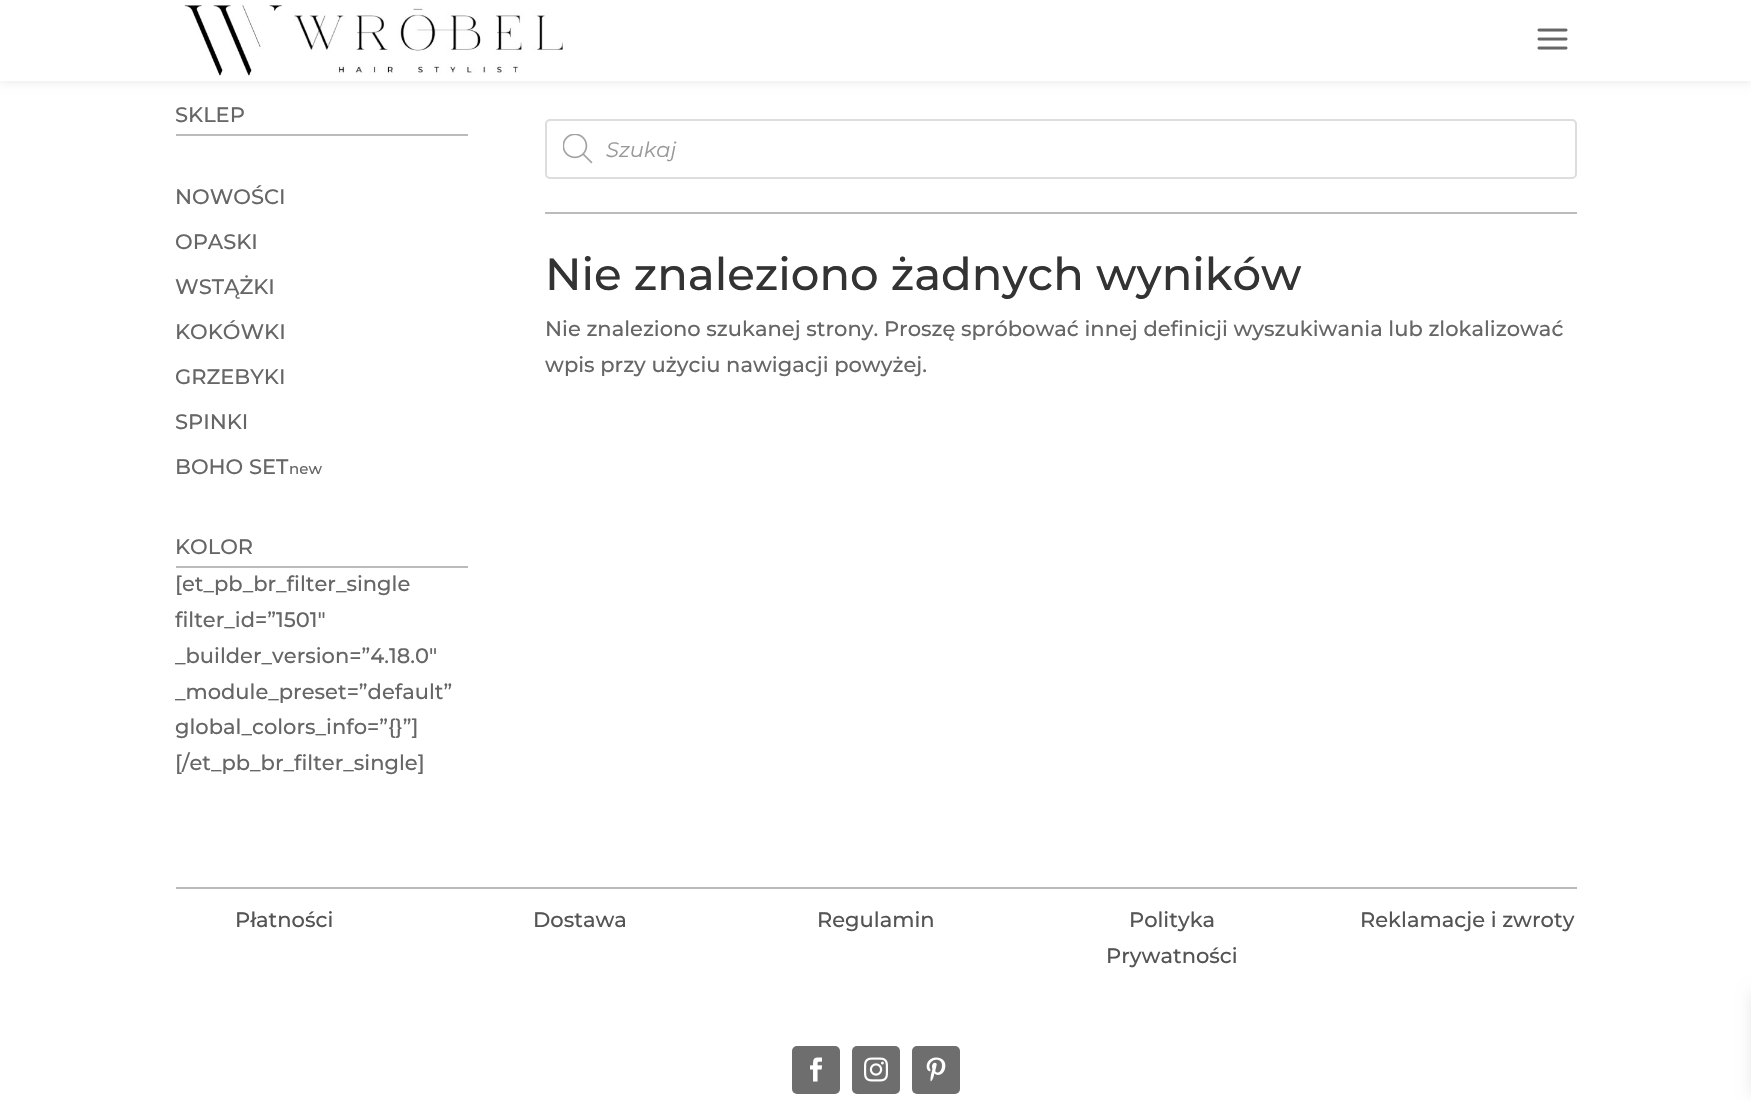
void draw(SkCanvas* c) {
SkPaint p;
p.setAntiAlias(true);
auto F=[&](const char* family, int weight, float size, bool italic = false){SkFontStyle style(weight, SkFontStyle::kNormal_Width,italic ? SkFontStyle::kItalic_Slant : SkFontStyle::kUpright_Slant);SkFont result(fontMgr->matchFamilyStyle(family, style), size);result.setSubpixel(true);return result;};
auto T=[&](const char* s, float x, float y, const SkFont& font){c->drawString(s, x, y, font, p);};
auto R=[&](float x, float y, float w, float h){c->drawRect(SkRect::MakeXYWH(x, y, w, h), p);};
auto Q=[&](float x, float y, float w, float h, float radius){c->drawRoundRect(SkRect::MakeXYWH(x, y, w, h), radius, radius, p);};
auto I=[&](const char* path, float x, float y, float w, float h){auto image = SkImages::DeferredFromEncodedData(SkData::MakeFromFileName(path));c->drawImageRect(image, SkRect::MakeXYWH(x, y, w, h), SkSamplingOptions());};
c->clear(0xffffffff);
p.setColor(0x1a000000);
p.setMaskFilter(SkMaskFilter::MakeBlur(kNormal_SkBlurStyle, 5));
c->drawRect(SkRect::MakeXYWH(0,0,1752,81),p);
p.setMaskFilter(nullptr);
p.setColor(0xffffffff);
R(0,0,1751,81);
I("1.png",184,3,379,75);
I("2.png",1537,28,31,22);
p.setColor(0xffbbbbbb);
R(176,134,292,2);
auto f1 = F("Montserrat",100,21);
p.setColor(0xff666666);
T("SKLEP",175,122,f1);
T("NOWOŚCI",175,204,f1);
T("OPASKI",175,249,f1);
T("WSTĄŻKI",175,294,f1);
T("KOKÓWKI",175,339,f1);
T("GRZEBYKI",175,384,f1);
T("SPINKI",175,429,f1);
T("BOHO SET",175,474,f1);
auto f2 = F("Montserrat",100,15);
T("new",289,474,f2);
p.setColor(0xffbbbbbb);
R(176,566,292,2);
p.setColor(0xff666666);
T("KOLOR",175,554,f1);
T("[et_pb_br_filter_single",175,591,f1);
T("filter_id=”1501″",175,627,f1);
T("_builder_version=”4.18.0″",175,663,f1);
T("_module_preset=”default”",175,699,f1);
T("global_colors_info=”{}”]",175,734,f1);
T("[/et_pb_br_filter_single]",175,770,f1);
p.setStroke(true);
p.setStrokeWidth(2);
p.setColor(0xffdddddd);
c->drawRoundRect(SkRect::MakeXYWH(546,120,1030,58),4,4,p);
I("3.png",563,134,30,30);
auto f3 = F("Montserrat",100,21,true);
p.setStroke(false);
p.setColor(0xff999999);
T("Szukaj",606,157,f3);
p.setColor(0xffbbbbbb);
R(545,212,1032,2);
auto f4 = F("Montserrat",100,45);
p.setColor(0xff333333);
T("Nie znaleziono żadnych wyników",545,290,f4);
p.setColor(0xff666666);
T("Nie znaleziono szukanej strony. Proszę spróbować innej definicji wyszukiwania lub zlokalizować",545,336,f1);
T("wpis przy użyciu nawigacji powyżej.",545,372,f1);
p.setColor(0xffbbbbbb);
R(176,887,1401,2);
p.setColor(0xff545454);
T("Płatności",235,927,f1);
T("Dostawa",533,927,f1);
T("Regulamin",817,927,f1);
T("Polityka",1129,927,f1);
T("Prywatności",1106,963,f1);
T("Reklamacje i zwroty",1360,927,f1);
p.setColor(0xff6e6e6e);
Q(792,1046,48,48,5);
I("4.png",810,1057,12,25);
Q(852,1046,48,48,5);
I("5.png",864,1057,24,25);
Q(912,1046,48,48,5);
I("6.png",926,1057,20,25);
p.setColor(0x1a000000);
p.setMaskFilter(SkMaskFilter::MakeBlur(kNormal_SkBlurStyle, 7.5));
c->drawRect(SkRect::MakeXYWH(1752,993,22,101),p);
p.setMaskFilter(nullptr);
}
